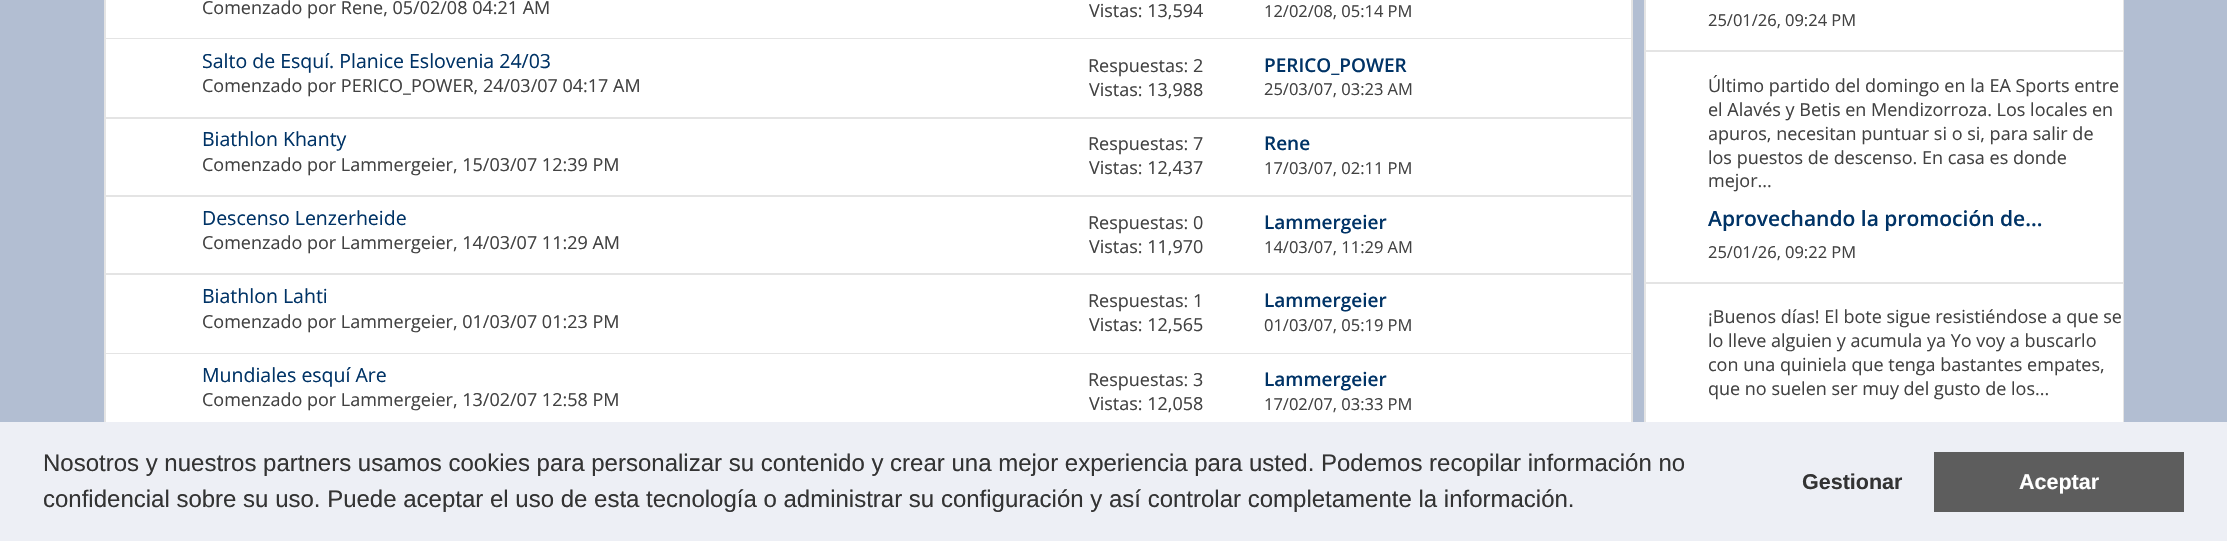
void draw(SkCanvas* c) {
SkPaint p;
p.setAntiAlias(true);
auto F=[&](const char* family, int weight, float size, bool italic = false){SkFontStyle style(weight, SkFontStyle::kNormal_Width,italic ? SkFontStyle::kItalic_Slant : SkFontStyle::kUpright_Slant);SkFont result(fontMgr->matchFamilyStyle(family, style), size);result.setSubpixel(true);return result;};
auto T=[&](const char* s, float x, float y, const SkFont& font){c->drawString(s, x, y, font, p);};
auto R=[&](float x, float y, float w, float h){c->drawRect(SkRect::MakeXYWH(x, y, w, h), p);};
c->clear(0xffb2bed2);
p.setColor(0xffffffff);
R(106,0,1525,38);
p.setColor(0xffe4e4e4);
R(1631,0,2,422);
R(104,38,1528,1);
R(104,0,2,39);
auto f1 = F("Open Sans",400,18);
p.setColor(0xff424242);
T("Comenzado por Rene, 05/02/08 04:21 AM",202,14,f1);
T("Vistas: 13,594",1089,17,f1);
auto f2 = F("Open Sans",400,16.5);
T("12/02/08, 05:14 PM",1264,17,f2);
p.setColor(0xffffffff);
R(106,39,1525,78);
p.setColor(0xffe4e4e4);
R(104,117,1528,2);
R(104,39,2,80);
auto f3 = F("Open Sans",400,19.5);
p.setColor(0xff003366);
T("Salto de Esquí. Planice Eslovenia 24/03",202,68,f3);
p.setColor(0xff424242);
T("Comenzado por PERICO_POWER, 24/03/07 04:17 AM",202,92,f1);
T("Respuestas: 2",1088,72,f1);
T("Vistas: 13,988",1089,96,f1);
auto f4 = F("Open Sans",600,19);
p.setColor(0xff003366);
T("PERICO_POWER",1264,72,f4);
p.setColor(0xff424242);
T("25/03/07, 03:23 AM",1264,95,f2);
p.setColor(0xffffffff);
R(106,119,1525,76);
p.setColor(0xffe4e4e4);
R(104,195,1528,2);
R(104,119,2,78);
p.setColor(0xff003366);
T("Biathlon Khanty",202,146,f3);
p.setColor(0xff424242);
T("Comenzado por Lammergeier, 15/03/07 12:39 PM",202,171,f1);
T("Respuestas: 7",1088,150,f1);
T("Vistas: 12,437",1089,174,f1);
p.setColor(0xff003366);
T("Rene",1264,150,f4);
p.setColor(0xff424242);
T("17/03/07, 02:11 PM",1264,174,f2);
p.setColor(0xffffffff);
R(106,197,1525,76);
p.setColor(0xffe4e4e4);
R(104,273,1528,2);
R(104,197,2,78);
p.setColor(0xff003366);
T("Descenso Lenzerheide",202,225,f3);
p.setColor(0xff424242);
T("Comenzado por Lammergeier, 14/03/07 11:29 AM",202,249,f1);
T("Respuestas: 0",1088,229,f1);
T("Vistas: 11,970",1089,253,f1);
p.setColor(0xff003366);
T("Lammergeier",1264,229,f4);
p.setColor(0xff424242);
T("14/03/07, 11:29 AM",1264,253,f2);
p.setColor(0xffffffff);
R(106,275,1525,78);
p.setColor(0xffe4e4e4);
R(104,353,1528,1);
R(104,275,2,147);
p.setColor(0xff003366);
T("Biathlon Lahti",202,303,f3);
p.setColor(0xff424242);
T("Comenzado por Lammergeier, 01/03/07 01:23 PM",202,328,f1);
T("Respuestas: 1",1088,307,f1);
T("Vistas: 12,565",1089,331,f1);
p.setColor(0xff003366);
T("Lammergeier",1264,307,f4);
p.setColor(0xff424242);
T("01/03/07, 05:19 PM",1264,331,f2);
p.setColor(0xffffffff);
R(106,354,1525,68);
p.setColor(0xff003366);
T("Mundiales esquí Are",202,382,f3);
p.setColor(0xff424242);
T("Comenzado por Lammergeier, 13/02/07 12:58 PM",202,406,f1);
T("Respuestas: 3",1088,386,f1);
T("Vistas: 12,058",1089,410,f1);
p.setColor(0xff003366);
T("Lammergeier",1264,386,f4);
p.setColor(0xff424242);
T("17/02/07, 03:33 PM",1264,410,f2);
p.setStroke(true);
p.setStrokeWidth(2);
p.setColor(0xffe4e4e4);
c->drawRect(SkRect::MakeXYWH(1645,-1,478,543),p);
p.setStroke(false);
p.setColor(0xffffffff);
R(1646,0,477,422);
p.setColor(0xff424242);
T("25/01/26,",1708,26,f2);
T("09:24 PM",1785,26,f2);
p.setColor(0xffe4e4e4);
R(1646,50,477,2);
p.setColor(0xff424242);
T("Último partido del domingo en la EA Sports entre",1708,92,f1);
T("el Alavés y Betis en Mendizorroza. Los locales en",1708,116,f1);
c->save();
c->clipRect(SkRect::MakeXYWH(1709,72,414,123));
T("apuros, necesitan puntuar si o si, para salir de",1708,140,f1);
c->restore();
T("los puestos de descenso. En casa es donde",1708,164,f1);
T("mejor...",1708,187,f1);
auto f5 = F("Open Sans",600,21);
p.setColor(0xff003366);
T("Aprovechando la promoción de...",1708,226,f5);
p.setColor(0xff424242);
T("25/01/26,",1708,258,f2);
T("09:22 PM",1785,258,f2);
p.setColor(0xffe4e4e4);
R(1646,282,477,2);
p.setColor(0xff424242);
T("¡Buenos días! El bote sigue resistiéndose a que se",1708,323,f1);
T("lo lleve alguien y acumula ya Yo voy a buscarlo",1708,347,f1);
T("con una quiniela que tenga bastantes empates,",1708,371,f1);
T("que no suelen ser muy del gusto de los...",1708,395,f1);
p.setColor(0xffedeff5);
R(0,422,2227,119);
auto f6 = F("Liberation Sans",400,24);
p.setColor(0xff333333);
T("Nosotros y nuestros partners usamos cookies para personalizar su contenido y crear una mejor experiencia para usted. Podemos recopilar información no",43,471,f6);
T("confidencial sobre su uso. Puede aceptar el uso de esta tecnología o administrar su configuración y así controlar completamente la información.",43,507,f6);
auto f7 = F("Liberation Sans",700,21.5);
T("Gestionar",1802,489,f7);
p.setColor(0xff5d5d5d);
R(1934,452,250,60);
p.setColor(0xffffffff);
T("Aceptar",2019,489,f7);
}
